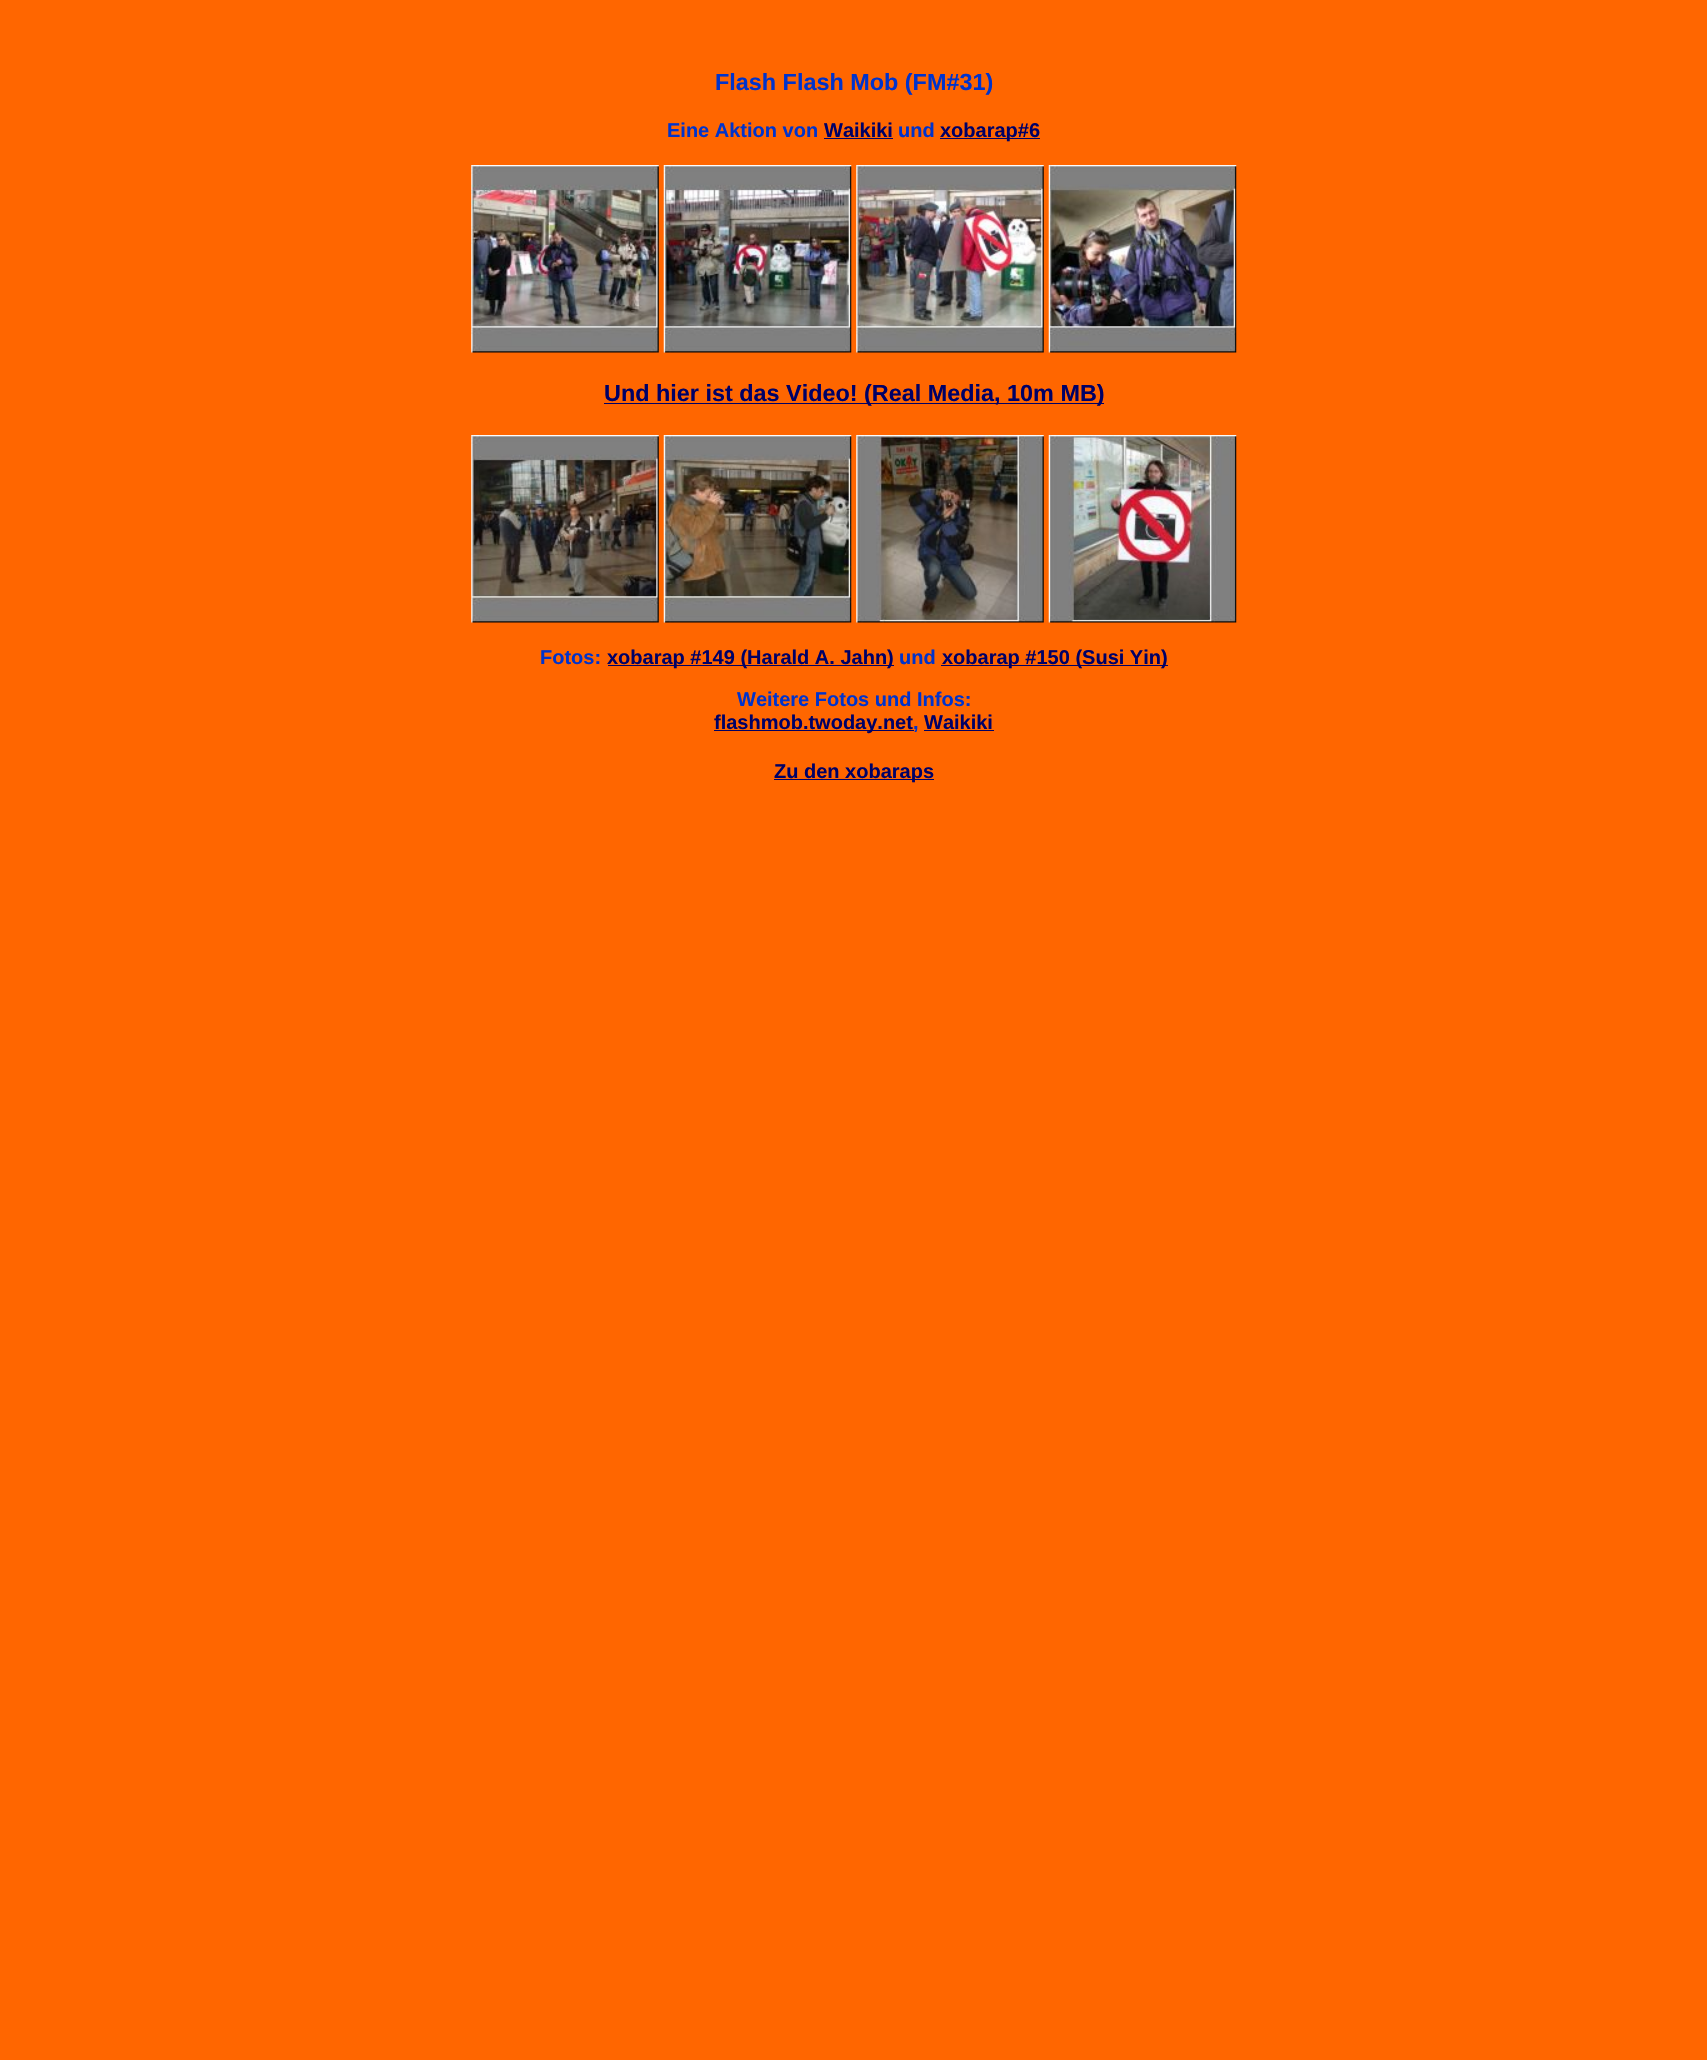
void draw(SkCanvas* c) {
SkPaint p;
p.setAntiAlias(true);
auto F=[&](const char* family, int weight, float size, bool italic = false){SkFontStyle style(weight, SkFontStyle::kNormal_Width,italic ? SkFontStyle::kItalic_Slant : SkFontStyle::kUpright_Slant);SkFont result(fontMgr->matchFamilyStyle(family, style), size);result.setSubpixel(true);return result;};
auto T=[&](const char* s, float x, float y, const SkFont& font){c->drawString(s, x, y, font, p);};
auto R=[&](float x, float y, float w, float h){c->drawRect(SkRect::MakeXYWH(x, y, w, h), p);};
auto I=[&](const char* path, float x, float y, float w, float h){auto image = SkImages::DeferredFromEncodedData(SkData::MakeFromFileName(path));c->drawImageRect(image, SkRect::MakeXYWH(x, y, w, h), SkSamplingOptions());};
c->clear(0xffff6600);
auto f1 = F("Liberation Sans",700,23.4);
p.setColor(0xff0033cc);
T("Flash Flash Mob (FM#31)",715,90,f1);
auto f2 = F("Liberation Sans",700,20);
T("Eine Aktion von",667,137,f2);
p.setColor(0xff000066);
T("Waikiki",824,137,f2);
R(824,138,69,1);
p.setColor(0xff0033cc);
T("und",898,137,f2);
p.setColor(0xff000066);
R(940,138,100,1);
T("xobarap#6",940,137,f2);
I("1.png",471,165,188,188);
I("2.png",663,165,189,188);
I("3.png",856,165,188,188);
I("4.png",1048,165,189,188);
R(604,403,500,1);
T("Und hier ist das Video! (Real Media, 10m MB)",604,401,f1);
I("5.png",471,435,188,188);
I("6.png",663,435,189,188);
I("7.png",856,435,188,188);
I("8.png",1048,435,189,188);
p.setColor(0xff0033cc);
T("Fotos:",540,664,f2);
p.setColor(0xff000066);
R(608,665,286,1);
T("xobarap #149 (Harald A. Jahn)",607,664,f2);
p.setColor(0xff0033cc);
T("und",899,664,f2);
p.setColor(0xff000066);
R(941,665,227,1);
T("xobarap #150 (Susi Yin)",942,664,f2);
p.setColor(0xff0033cc);
T("Weitere Fotos und Infos:",737,706,f2);
p.setColor(0xff000066);
R(714,730,200,1);
T("flashmob.twoday.net",714,729,f2);
p.setColor(0xff0033cc);
T(",",913,729,f2);
p.setColor(0xff000066);
R(924,730,70,1);
T("Waikiki",924,729,f2);
R(774,779,160,1);
T("Zu den xobaraps",774,778,f2);
}
